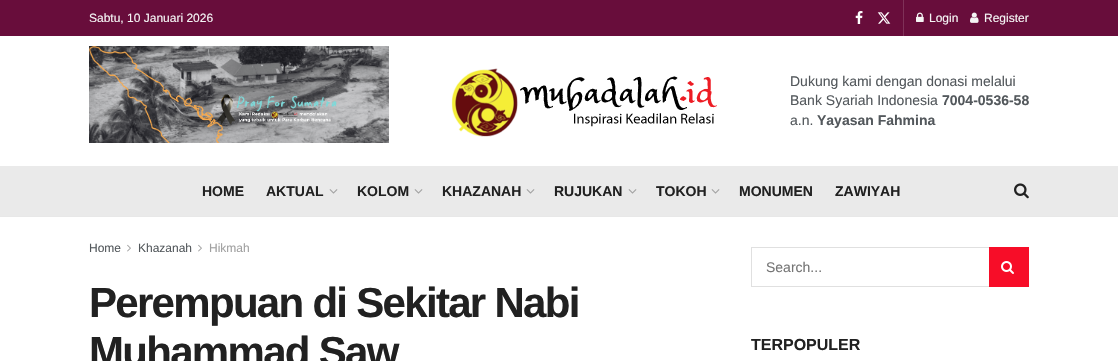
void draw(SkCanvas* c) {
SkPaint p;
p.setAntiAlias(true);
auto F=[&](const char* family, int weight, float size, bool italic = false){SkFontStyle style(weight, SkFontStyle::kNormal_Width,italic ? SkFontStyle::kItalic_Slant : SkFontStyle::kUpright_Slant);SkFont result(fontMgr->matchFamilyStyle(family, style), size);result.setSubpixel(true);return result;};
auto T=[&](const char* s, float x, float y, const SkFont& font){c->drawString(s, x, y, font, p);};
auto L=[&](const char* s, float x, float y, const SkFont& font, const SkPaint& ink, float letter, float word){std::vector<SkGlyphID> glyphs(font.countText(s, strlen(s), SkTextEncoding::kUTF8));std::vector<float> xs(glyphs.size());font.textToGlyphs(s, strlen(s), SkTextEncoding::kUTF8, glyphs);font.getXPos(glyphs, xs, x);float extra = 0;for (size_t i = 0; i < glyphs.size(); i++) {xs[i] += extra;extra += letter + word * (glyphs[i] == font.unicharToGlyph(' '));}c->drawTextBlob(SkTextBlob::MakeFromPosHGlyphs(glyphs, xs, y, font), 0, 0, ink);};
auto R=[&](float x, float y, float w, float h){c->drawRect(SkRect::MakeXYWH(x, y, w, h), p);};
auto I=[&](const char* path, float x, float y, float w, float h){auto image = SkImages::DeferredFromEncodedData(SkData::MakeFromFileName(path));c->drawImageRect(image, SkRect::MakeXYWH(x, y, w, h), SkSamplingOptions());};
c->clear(0xffffffff);
p.setColor(0xff680d3b);
R(0,0,1118,36);
p.setColor(0xff7f3158);
R(903,0,1,36);
auto f1 = F("Liberation Sans",400,12);
p.setColor(0xfff5f5f5);
T("Sabtu, 10 Januari 2026",89,22,f1);
I("1.png",855,11,8,13);
I("2.png",877,12,14,12);
I("3.png",916,12,8,10);
T("Login",929,22,f1);
I("4.png",970,12,9,11);
T("Register",984,22,f1);
I("5.png",89,46,300,97);
I("6.png",451,68,266,69);
auto f2 = F("Liberation Sans",400,14);
p.setColor(0xff53585c);
T("Dukung kami dengan donasi melalui",790,86,f2);
T("Bank Syariah Indonesia",790,105,f2);
auto f3 = F("Liberation Sans",700,14);
T("7004-0536-58",942,105,f3);
T("a.n.",790,125,f2);
T("Yayasan Fahmina",817,125,f3);
p.setColor(0xffeaeaea);
R(0,166,1118,50);
p.setColor(0xffe8e8e8);
R(0,216,1118,1);
p.setColor(0xff212121);
T("HOME",202,196,f3);
T("AKTUAL",266,196,f3);
I("7.png",329,189,9,5);
T("KOLOM",357,196,f3);
I("7.png",414,189,9,5);
T("KHAZANAH",442,196,f3);
I("7.png",526,189,9,5);
T("RUJUKAN",554,196,f3);
I("7.png",628,189,9,5);
T("TOKOH",656,196,f3);
I("7.png",711,189,9,5);
T("MONUMEN",739,196,f3);
T("ZAWIYAH",835,196,f3);
I("8.png",1014,183,15,16);
p.setColor(0xff53585c);
T("Home",89,252,f1);
I("9.png",127,244,4,8);
T("Khazanah",138,252,f1);
I("9.png",198,244,4,8);
p.setColor(0xffa0a0a0);
T("Hikmah",209,252,f1);
auto f4 = F("Liberation Sans",700,42);
p.setColor(0xff212121);
L("Perempuan di Sekitar Nabi",89,317,f4,p,-1.7,0);
L("Muhammad Saw",89,366,f4,p,-1.7,0);
p.setStroke(true);
p.setStrokeWidth(1);
p.setColor(0xffe0e0e0);
c->drawRect(SkRect::MakeXYWH(751.5,247.5,277,39),p);
p.setStroke(false);
p.setColor(0xff757575);
T("Search...",766,272,f2);
p.setColor(0xfff70d28);
R(989,247,40,40);
I("10.png",1001,261,13,13);
auto f5 = F("Liberation Sans",700,16);
p.setColor(0xff212121);
T("TERPOPULER",751,350,f5);
}
